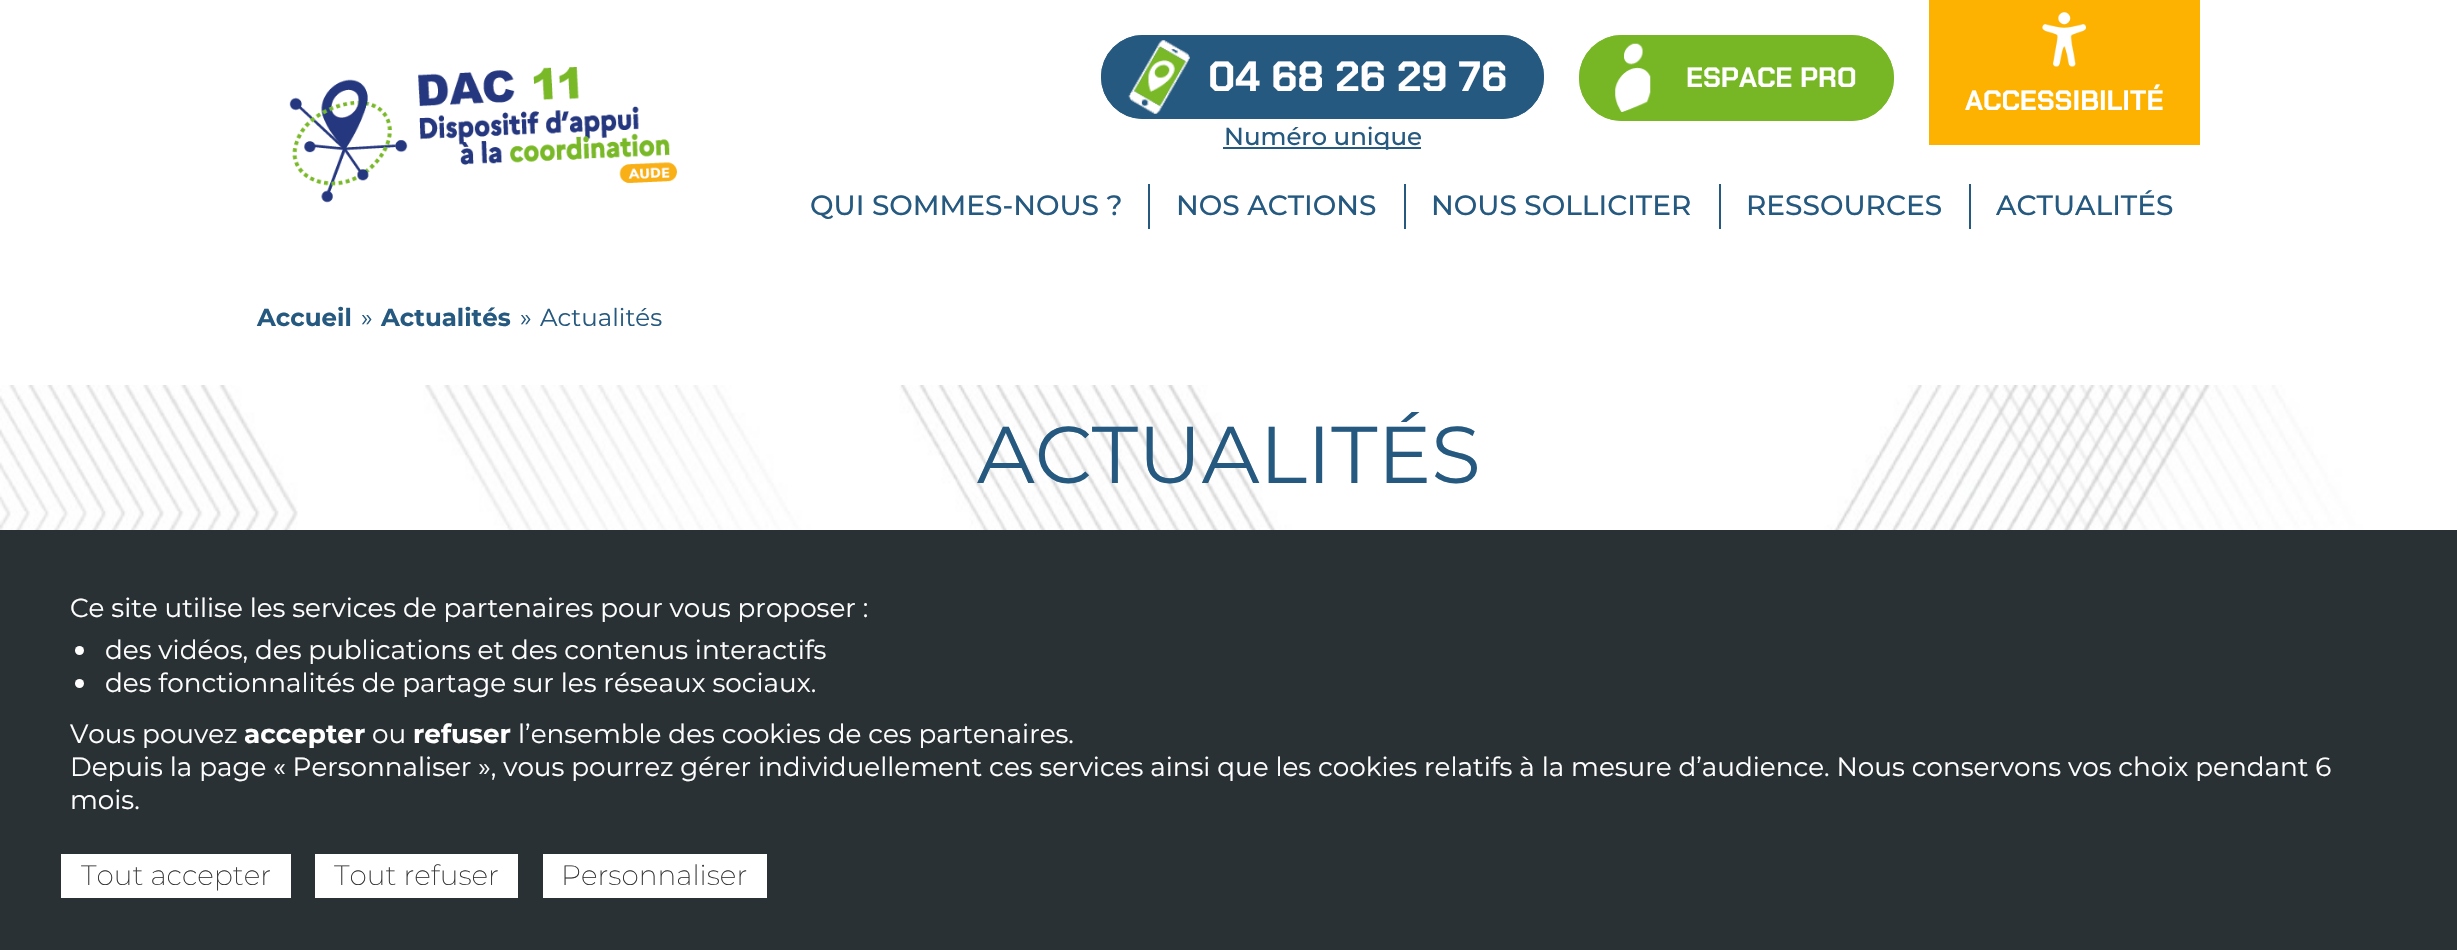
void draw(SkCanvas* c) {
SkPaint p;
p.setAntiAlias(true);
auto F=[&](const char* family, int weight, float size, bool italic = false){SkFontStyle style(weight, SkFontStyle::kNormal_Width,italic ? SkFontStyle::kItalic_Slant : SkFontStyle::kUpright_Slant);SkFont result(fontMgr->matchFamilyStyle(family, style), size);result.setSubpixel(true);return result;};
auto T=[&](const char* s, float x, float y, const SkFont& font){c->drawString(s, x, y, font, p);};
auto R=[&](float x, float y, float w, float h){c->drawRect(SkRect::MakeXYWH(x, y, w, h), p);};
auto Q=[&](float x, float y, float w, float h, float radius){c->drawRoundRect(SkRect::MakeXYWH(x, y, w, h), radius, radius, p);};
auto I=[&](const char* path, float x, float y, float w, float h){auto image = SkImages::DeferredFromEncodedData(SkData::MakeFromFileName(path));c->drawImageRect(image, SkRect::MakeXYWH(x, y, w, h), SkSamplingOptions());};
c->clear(0xffffffff);
I("1.png",0,385,2457,145);
I("2.png",289,67,388,136);
p.setColor(0xff25597f);
Q(1101,35,443,84,42);
I("3.png",1128,40,62,74);
p.setStroke(true);
p.setStrokeWidth(2);
c->drawRoundRect(SkRect::MakeXYWH(1102,36,441,82),41,41,p);
auto f1 = F("Chakra Petch",700,42);
p.setStroke(false);
p.setColor(0xffffffff);
T("04 68 26 29 76",1208,91,f1);
p.setColor(0xff25597f);
R(1223,147,198,2);
auto f2 = F("Montserrat",500,24.5);
T("Numéro unique",1224,145,f2);
p.setColor(0xff77b725);
Q(1579,35,315,86,43);
I("4.png",1615,43,36,69);
p.setStroke(true);
c->drawRoundRect(SkRect::MakeXYWH(1580,36,313,84),42,42,p);
auto f3 = F("Chakra Petch",700,28);
p.setStroke(false);
p.setColor(0xffffffff);
T("ESPACE PRO",1686,87,f3);
p.setColor(0xfffdb100);
R(1929,0,271,145);
I("5.png",2042,12,44,55);
p.setColor(0xffffffff);
T("ACCESSIBILITÉ",1965,110,f3);
auto f4 = F("Montserrat",500,28);
p.setColor(0xff25597f);
T("QUI SOMMES-NOUS ?",810,215,f4);
R(1148,184,2,45);
T("NOS ACTIONS",1176,215,f4);
R(1404,184,2,45);
T("NOUS SOLLICITER",1431,215,f4);
R(1719,184,2,45);
T("RESSOURCES",1746,215,f4);
R(1969,184,2,45);
T("ACTUALITÉS",1996,215,f4);
auto f5 = F("Montserrat",700,24.5);
T("Accueil",257,326,f5);
auto f6 = F("Montserrat",400,24.5);
T("»",361,326,f6);
T("Actualités",381,326,f5);
T("»",520,326,f6);
T("Actualités",540,326,f6);
auto f7 = F("Montserrat",400,80.5);
T("ACTUALITÉS",977,483,f7);
p.setColor(0xff2a3135);
R(0,530,2457,420);
auto f8 = F("Montserrat",400,26.25);
p.setColor(0xffffffff);
T("Ce site utilise les services de partenaires pour vous proposer :",70,617,f8);
c->drawCircle(79.5,650.5,4.5,p);
T("des vidéos, des publications et des contenus interactifs",105,659,f8);
c->drawCircle(79.5,683.5,4.5,p);
T("des fonctionnalités de partage sur les réseaux sociaux.",105,692,f8);
T("Vous pouvez",70,743,f8);
auto f9 = F("Montserrat",700,26.25);
T("accepter",244,743,f9);
T("ou",372,743,f8);
T("refuser",413,743,f9);
T("l’ensemble des cookies de ces partenaires.",518,743,f8);
T("Depuis la page « Personnaliser », vous pourrez gérer individuellement ces services ainsi que les cookies relatifs à la mesure d’audience. Nous conservons vos choix pendant 6",70,776,f8);
T("mois.",70,809,f8);
R(61,854,230,44);
auto f10 = F("Montserrat",200,28);
p.setColor(0xff333333);
T("Tout accepter",81,885,f10);
p.setColor(0xffffffff);
R(315,854,203,44);
p.setColor(0xff333333);
T("Tout refuser",334,885,f10);
p.setColor(0xffffffff);
R(543,854,224,44);
p.setColor(0xff333333);
T("Personnaliser",561,885,f10);
}
